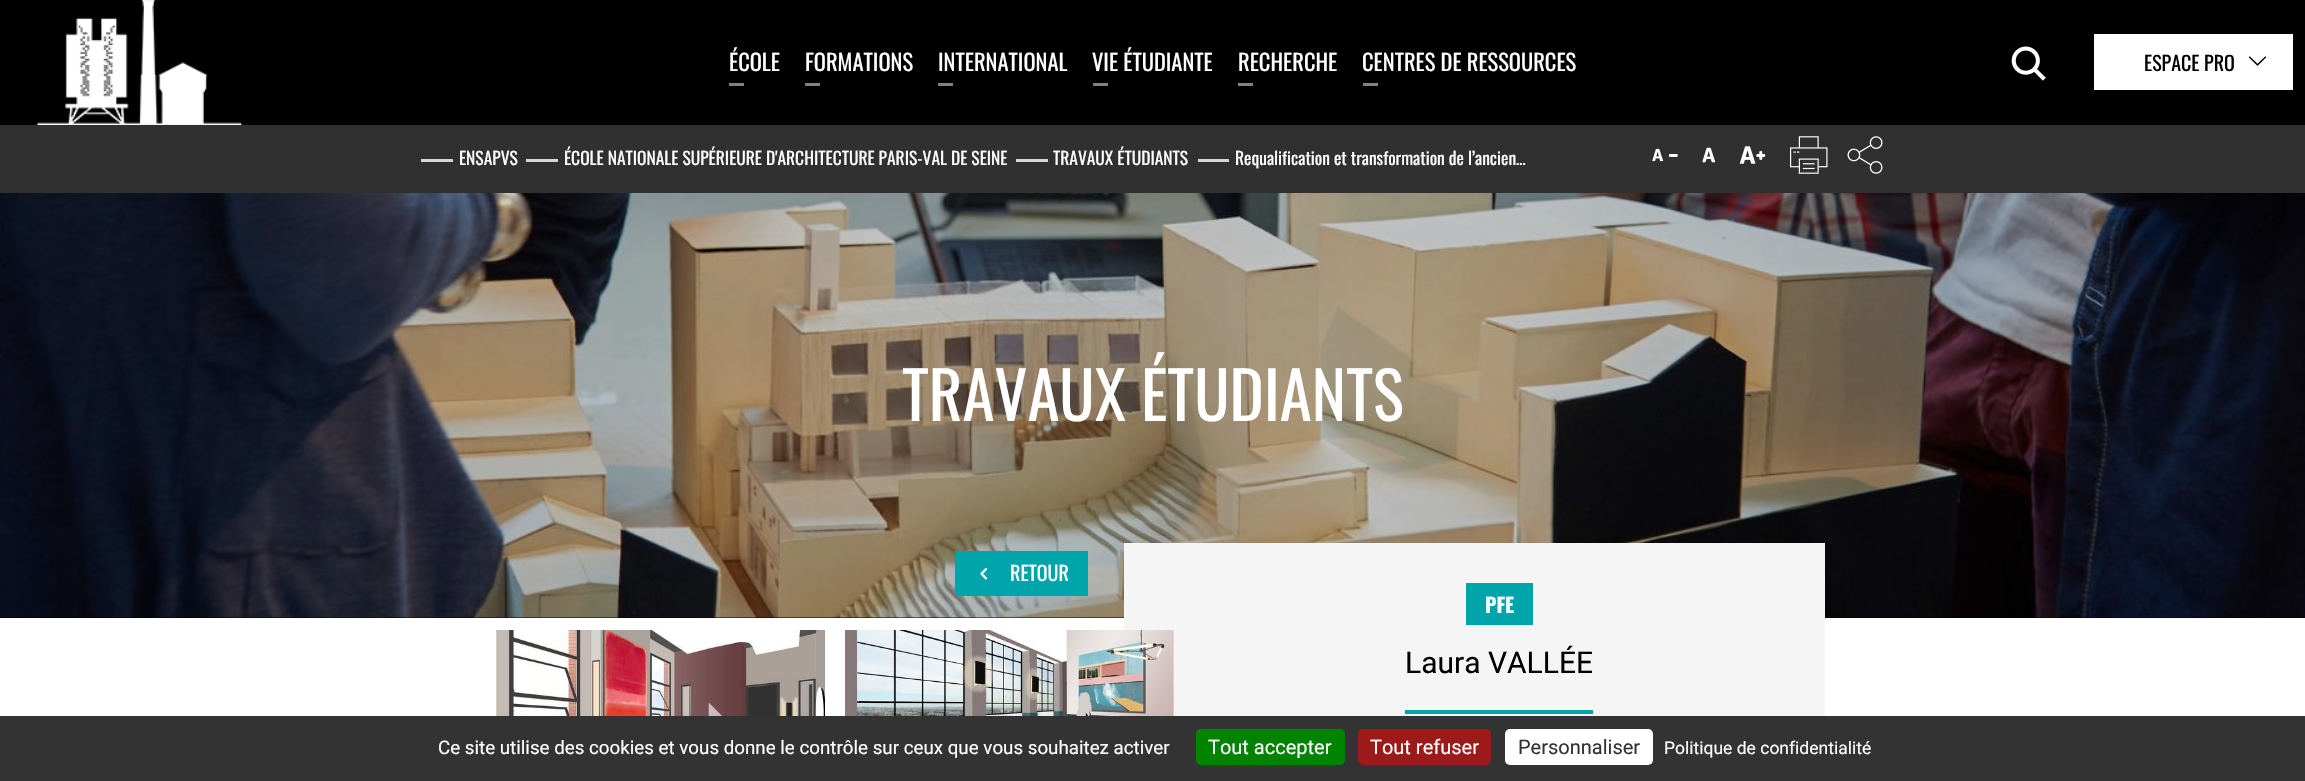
void draw(SkCanvas* c) {
SkPaint p;
p.setAntiAlias(true);
auto F=[&](const char* family, int weight, float size, bool italic = false){SkFontStyle style(weight, SkFontStyle::kNormal_Width,italic ? SkFontStyle::kItalic_Slant : SkFontStyle::kUpright_Slant);SkFont result(fontMgr->matchFamilyStyle(family, style), size);result.setSubpixel(true);return result;};
auto T=[&](const char* s, float x, float y, const SkFont& font){c->drawString(s, x, y, font, p);};
auto R=[&](float x, float y, float w, float h){c->drawRect(SkRect::MakeXYWH(x, y, w, h), p);};
auto Q=[&](float x, float y, float w, float h, float radius){c->drawRoundRect(SkRect::MakeXYWH(x, y, w, h), radius, radius, p);};
auto I=[&](const char* path, float x, float y, float w, float h){auto image = SkImages::DeferredFromEncodedData(SkData::MakeFromFileName(path));c->drawImageRect(image, SkRect::MakeXYWH(x, y, w, h), SkSamplingOptions());};
c->clear(0xffffffff);
p.setColor(0xff000000);
R(0,0,2305,125);
I("1.png",37,0,205,125);
auto f1 = F("Oswald",400,22.5);
p.setColor(0xffffffff);
T("ÉCOLE",729,71,f1);
p.setColor(0xff808080);
R(729,83,15,3);
p.setColor(0xffffffff);
T("FORMATIONS",805,71,f1);
p.setColor(0xff808080);
R(805,83,15,3);
p.setColor(0xffffffff);
T("INTERNATIONAL",938,71,f1);
p.setColor(0xff808080);
R(938,83,15,3);
p.setColor(0xffffffff);
T("VIE ÉTUDIANTE",1092,71,f1);
p.setColor(0xff808080);
R(1093,83,15,3);
p.setColor(0xffffffff);
T("RECHERCHE",1238,71,f1);
p.setColor(0xff808080);
R(1238,83,15,3);
p.setColor(0xffffffff);
T("CENTRES DE RESSOURCES",1362,71,f1);
p.setColor(0xff808080);
R(1363,83,15,3);
I("2.png",2011,46,35,35);
p.setColor(0xffffffff);
R(2094,34,199,56);
auto f2 = F("Oswald",400,20);
p.setColor(0xff000000);
T("ESPACE PRO",2144,71,f2);
I("3.png",2248,56,19,10);
p.setColor(0xff303030);
R(0,125,2305,68);
p.setColor(0xffd6d6d6);
R(421,159,32,3);
auto f3 = F("Oswald",400,17.5);
p.setColor(0xffffffff);
T("ENSAPVS",459,165,f3);
p.setColor(0xffd6d6d6);
R(526,159,32,3);
p.setColor(0xffffffff);
T("ÉCOLE NATIONALE SUPÉRIEURE D'ARCHITECTURE PARIS-VAL DE SEINE",564,165,f3);
p.setColor(0xffd6d6d6);
R(1016,159,32,3);
p.setColor(0xffffffff);
T("TRAVAUX ÉTUDIANTS",1053,165,f3);
p.setColor(0xffd6d6d6);
R(1198,159,31,3);
p.setColor(0xffffffff);
T("Requalification et transformation de l’ancien…",1235,165,f3);
I("4.png",1652,148,26,14);
I("5.png",1702,147,14,16);
I("6.png",1739,146,27,18);
I("7.png",1790,136,38,38);
I("8.png",1847,136,36,38);
p.setColor(0xff000000);
R(0,617,2305,1);
I("9.png",0,193,2305,425);
auto f4 = F("Oswald",400,65);
p.setColor(0xffffffff);
T("TRAVAUX ÉTUDIANTS",902,421,f4);
I("10.png",496,630,329,86);
p.setColor(0xfff5f5f5);
R(1124,543,701,173);
I("11.png",845,630,329,86);
p.setColor(0xff00a5ac);
R(955,551,133,45);
I("12.png",980,567,8,13);
p.setColor(0xffffffff);
T("RETOUR",1010,581,f2);
p.setColor(0xff00a5ac);
R(1466,583,67,42);
auto f5 = F("Oswald",700,20);
p.setColor(0xffffffff);
T("PFE",1485,613,f5);
auto f6 = F("Roboto",400,30);
p.setColor(0xff000000);
T("Laura VALLÉE",1405,673,f6);
p.setColor(0xff00a5ac);
R(1405,710,188,4);
p.setColor(0xff333333);
R(0,716,2305,65);
auto f7 = F("Roboto",400,18.75);
p.setColor(0xffffffff);
T("Ce site utilise des cookies et vous donne le contrôle sur ceux que vous souhaitez activer",438,754,f7);
p.setColor(0xff008300);
Q(1196,729,149,36,5);
auto f8 = F("Roboto",400,20);
p.setColor(0xffffffff);
T("Tout accepter",1208,754,f8);
p.setColor(0xff9c1a1a);
Q(1358,729,133,36,5);
p.setColor(0xffffffff);
T("Tout refuser",1370,754,f8);
Q(1505,729,148,36,5);
p.setColor(0xff333333);
T("Personnaliser",1518,754,f8);
auto f9 = F("Roboto",400,17.5);
p.setColor(0xffffffff);
T("Politique de confidentialité",1664,754,f9);
}
